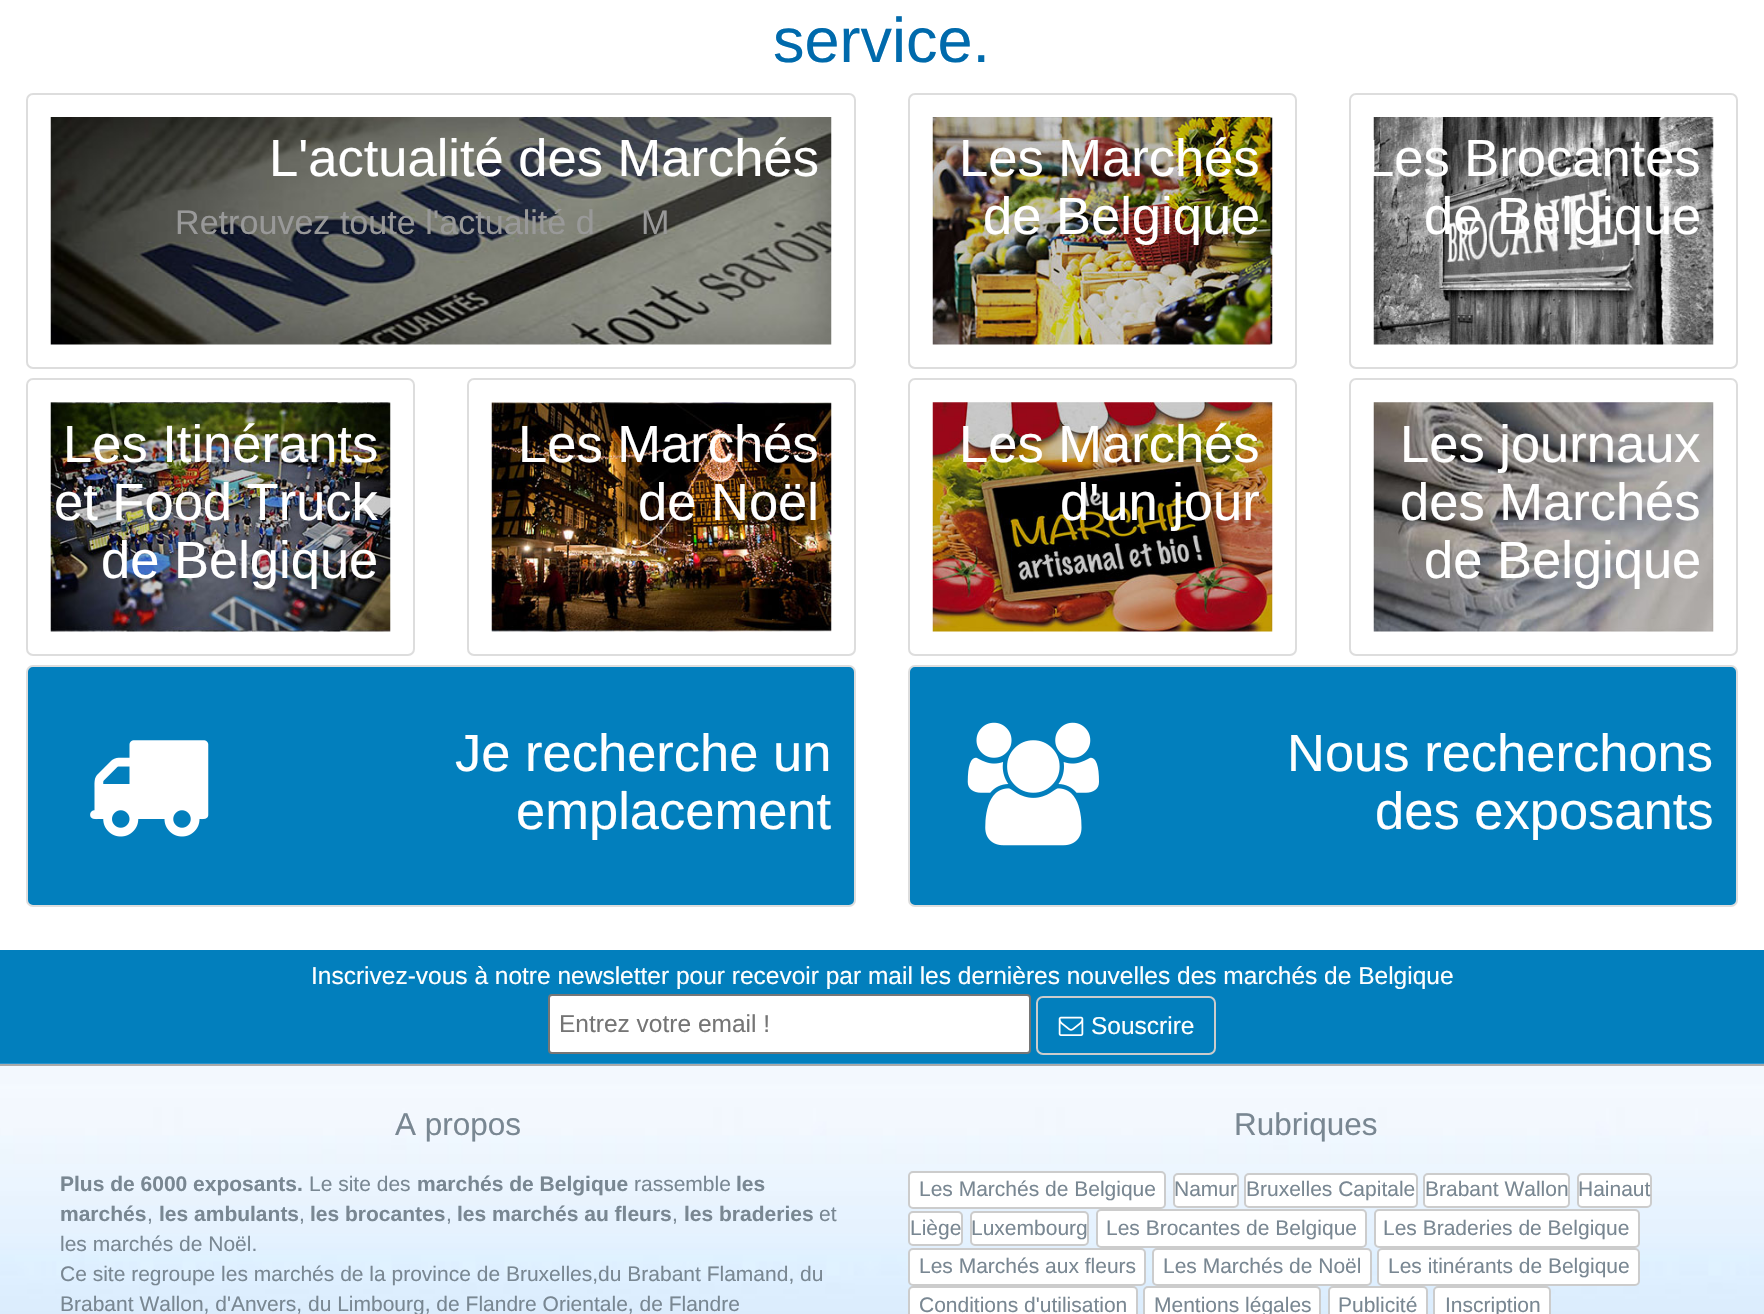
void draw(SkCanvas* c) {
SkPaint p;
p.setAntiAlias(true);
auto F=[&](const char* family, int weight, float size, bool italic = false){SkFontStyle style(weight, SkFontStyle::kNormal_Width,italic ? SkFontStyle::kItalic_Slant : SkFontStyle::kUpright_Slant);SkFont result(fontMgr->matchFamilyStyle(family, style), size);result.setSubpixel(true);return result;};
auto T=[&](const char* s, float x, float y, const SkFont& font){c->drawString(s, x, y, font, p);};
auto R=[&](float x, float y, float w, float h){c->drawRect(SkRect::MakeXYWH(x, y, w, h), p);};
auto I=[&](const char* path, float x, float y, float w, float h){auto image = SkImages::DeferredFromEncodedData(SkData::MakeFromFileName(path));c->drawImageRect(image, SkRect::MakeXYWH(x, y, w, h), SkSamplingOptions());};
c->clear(0xffffffff);
auto f1 = F("Liberation Sans",400,63);
p.setColor(0xff006aac);
T("service.",773,62,f1);
p.setStroke(true);
p.setStrokeWidth(2);
p.setColor(0xffdddddd);
c->drawRoundRect(SkRect::MakeXYWH(27,94,828,274),6,6,p);
I("1.png",50,117,782,228);
auto f2 = F("Liberation Sans",400,52.5);
p.setStroke(false);
p.setColor(0xffffffff);
T("L'actualité des Marchés",269,176,f2);
auto f3 = F("Liberation Sans",400,34.1);
p.setColor(0xff999999);
T("Retrouvez toute l'actualité d",175,234,f3);
T("M",641,234,f3);
p.setStroke(true);
p.setColor(0xffdddddd);
c->drawRoundRect(SkRect::MakeXYWH(909,94,387,274),6,6,p);
I("2.png",932,117,341,228);
p.setStroke(false);
p.setColor(0xffffffff);
T("Les Marchés",959,176,f2);
T("de Belgique",983,234,f2);
p.setStroke(true);
p.setColor(0xffdddddd);
c->drawRoundRect(SkRect::MakeXYWH(1350,94,387,274),6,6,p);
I("3.png",1373,117,341,228);
p.setStroke(false);
p.setColor(0xffffffff);
T("Les Brocantes",1365,176,f2);
T("de Belgique",1424,234,f2);
p.setStroke(true);
p.setColor(0xffdddddd);
c->drawRoundRect(SkRect::MakeXYWH(27,379,387,276),6,6,p);
I("4.png",50,402,341,230);
p.setStroke(false);
p.setColor(0xffffffff);
T("Les Itinérants",63,462,f2);
T("et Food Truck",54,520,f2);
T("de Belgique",101,578,f2);
p.setStroke(true);
p.setColor(0xffdddddd);
c->drawRoundRect(SkRect::MakeXYWH(468,379,387,276),6,6,p);
I("5.png",491,402,341,230);
p.setStroke(false);
p.setColor(0xffffffff);
T("Les Marchés",518,462,f2);
T("de Noël",638,520,f2);
p.setStroke(true);
p.setColor(0xffdddddd);
c->drawRoundRect(SkRect::MakeXYWH(909,379,387,276),6,6,p);
I("6.png",932,402,341,230);
p.setStroke(false);
p.setColor(0xffffffff);
T("Les Marchés",959,462,f2);
T("d'un jour",1060,520,f2);
p.setStroke(true);
p.setColor(0xffdddddd);
c->drawRoundRect(SkRect::MakeXYWH(1350,379,387,276),6,6,p);
I("7.png",1373,402,341,230);
p.setStroke(false);
p.setColor(0xffffffff);
T("Les journaux",1400,462,f2);
T("des Marchés",1400,520,f2);
T("de Belgique",1424,578,f2);
p.setColor(0xff027fbd);
c->drawRoundRect(SkRect::MakeXYWH(27,666,828,240),6,6,p);
p.setStroke(true);
p.setColor(0xffdddddd);
c->drawRoundRect(SkRect::MakeXYWH(27,666,828,240),6,6,p);
I("8.png",90,740,119,97);
p.setStroke(false);
p.setColor(0xffffffff);
T("Je recherche un",455,771,f2);
T("emplacement",516,829,f2);
p.setColor(0xff027fbd);
c->drawRoundRect(SkRect::MakeXYWH(909,666,828,240),6,6,p);
p.setStroke(true);
p.setColor(0xffdddddd);
c->drawRoundRect(SkRect::MakeXYWH(909,666,828,240),6,6,p);
I("9.png",967,722,132,124);
p.setStroke(false);
p.setColor(0xffffffff);
T("Nous recherchons",1287,771,f2);
T("des exposants",1375,829,f2);
p.setColor(0xff027fbd);
R(0,950,1764,114);
auto f4 = F("Liberation Sans",400,24.5);
p.setColor(0xffffffff);
T("Inscrivez-vous à notre newsletter pour recevoir par mail les dernières nouvelles des marchés de Belgique",311,984,f4);
c->drawRoundRect(SkRect::MakeXYWH(549,995,481,58),3,3,p);
p.setStroke(true);
p.setColor(0xff767676);
c->drawRoundRect(SkRect::MakeXYWH(549,995,481,58),3,3,p);
p.setStroke(false);
p.setColor(0xff757575);
T("Entrez votre email !",559,1032,f4);
p.setStroke(true);
p.setColor(0xffcccccc);
c->drawRoundRect(SkRect::MakeXYWH(1037,997,178,57),6,6,p);
I("10.png",1058,1016,26,20);
p.setStroke(false);
p.setColor(0xffffffff);
T("Souscrire",1091,1034,f4);
I("11.png",0,1063,1764,251);
p.setColor(0xffaaaaaa);
R(0,1064,1764,2);
auto f5 = F("Liberation Sans",400,31.5);
p.setColor(0xff798792);
T("A propos",395,1135,f5);
auto f6 = F("Liberation Sans",700,21);
T("Plus de 6000 exposants.",60,1191,f6);
auto f7 = F("Liberation Sans",400,21);
T("Le site des",309,1191,f7);
T("marchés de Belgique",417,1191,f6);
T("rassemble",634,1191,f7);
T("les",736,1191,f6);
T("marchés",60,1221,f6);
T(",",147,1221,f7);
T("les ambulants",159,1221,f6);
T(",",299,1221,f7);
T("les brocantes",310,1221,f6);
T(",",446,1221,f7);
T("les marchés au fleurs",457,1221,f6);
T(",",672,1221,f7);
T("les braderies",684,1221,f6);
T("et",819,1221,f7);
T("les marchés de Noël.",60,1251,f7);
T("Ce site regroupe les marchés de la province de Bruxelles,du Brabant Flamand, du",60,1281,f7);
T("Brabant Wallon, d'Anvers, du Limbourg, de Flandre Orientale, de Flandre",60,1311,f7);
T("Rubriques",1234,1135,f5);
p.setColor(0xffffffff);
c->drawRoundRect(SkRect::MakeXYWH(909,1172,256,36),4,4,p);
p.setStroke(true);
p.setColor(0xffcccccc);
c->drawRoundRect(SkRect::MakeXYWH(909,1172,256,36),4,4,p);
p.setStroke(false);
p.setColor(0xff798792);
T("Les Marchés de Belgique",919,1196,f7);
p.setColor(0xffffffff);
c->drawRoundRect(SkRect::MakeXYWH(1174,1174,64,33),4,4,p);
p.setStroke(true);
p.setColor(0xffcccccc);
c->drawRoundRect(SkRect::MakeXYWH(1174,1174,64,33),4,4,p);
p.setStroke(false);
p.setColor(0xff798792);
T("Namur",1174,1196,f7);
p.setColor(0xffffffff);
c->drawRoundRect(SkRect::MakeXYWH(1245,1174,172,33),4,4,p);
p.setStroke(true);
p.setColor(0xffcccccc);
c->drawRoundRect(SkRect::MakeXYWH(1245,1174,172,33),4,4,p);
p.setStroke(false);
p.setColor(0xff798792);
T("Bruxelles Capitale",1246,1196,f7);
p.setColor(0xffffffff);
c->drawRoundRect(SkRect::MakeXYWH(1424,1174,145,33),4,4,p);
p.setStroke(true);
p.setColor(0xffcccccc);
c->drawRoundRect(SkRect::MakeXYWH(1424,1174,145,33),4,4,p);
p.setStroke(false);
p.setColor(0xff798792);
T("Brabant Wallon",1425,1196,f7);
p.setColor(0xffffffff);
c->drawRoundRect(SkRect::MakeXYWH(1578,1174,73,33),4,4,p);
p.setStroke(true);
p.setColor(0xffcccccc);
c->drawRoundRect(SkRect::MakeXYWH(1578,1174,73,33),4,4,p);
p.setStroke(false);
p.setColor(0xff798792);
T("Hainaut",1578,1196,f7);
p.setColor(0xffffffff);
c->drawRoundRect(SkRect::MakeXYWH(909,1212,53,33),4,4,p);
p.setStroke(true);
p.setColor(0xffcccccc);
c->drawRoundRect(SkRect::MakeXYWH(909,1212,53,33),4,4,p);
p.setStroke(false);
p.setColor(0xff798792);
T("Liège",910,1235,f7);
p.setColor(0xffffffff);
c->drawRoundRect(SkRect::MakeXYWH(971,1212,117,33),4,4,p);
p.setStroke(true);
p.setColor(0xffcccccc);
c->drawRoundRect(SkRect::MakeXYWH(971,1212,117,33),4,4,p);
p.setStroke(false);
p.setColor(0xff798792);
T("Luxembourg",971,1235,f7);
p.setColor(0xffffffff);
c->drawRoundRect(SkRect::MakeXYWH(1097,1210,269,37),4,4,p);
p.setStroke(true);
p.setColor(0xffcccccc);
c->drawRoundRect(SkRect::MakeXYWH(1097,1210,269,37),4,4,p);
p.setStroke(false);
p.setColor(0xff798792);
T("Les Brocantes de Belgique",1106,1235,f7);
p.setColor(0xffffffff);
c->drawRoundRect(SkRect::MakeXYWH(1375,1210,264,37),4,4,p);
p.setStroke(true);
p.setColor(0xffcccccc);
c->drawRoundRect(SkRect::MakeXYWH(1375,1210,264,37),4,4,p);
p.setStroke(false);
p.setColor(0xff798792);
T("Les Braderies de Belgique",1383,1235,f7);
p.setColor(0xffffffff);
c->drawRoundRect(SkRect::MakeXYWH(909,1249,236,36),4,4,p);
p.setStroke(true);
p.setColor(0xffcccccc);
c->drawRoundRect(SkRect::MakeXYWH(909,1249,236,36),4,4,p);
p.setStroke(false);
p.setColor(0xff798792);
T("Les Marchés aux fleurs",919,1273,f7);
p.setColor(0xffffffff);
c->drawRoundRect(SkRect::MakeXYWH(1153,1249,218,36),4,4,p);
p.setStroke(true);
p.setColor(0xffcccccc);
c->drawRoundRect(SkRect::MakeXYWH(1153,1249,218,36),4,4,p);
p.setStroke(false);
p.setColor(0xff798792);
T("Les Marchés de Noël",1163,1273,f7);
p.setColor(0xffffffff);
c->drawRoundRect(SkRect::MakeXYWH(1378,1249,261,36),4,4,p);
p.setStroke(true);
p.setColor(0xffcccccc);
c->drawRoundRect(SkRect::MakeXYWH(1378,1249,261,36),4,4,p);
p.setStroke(false);
p.setColor(0xff798792);
T("Les itinérants de Belgique",1388,1273,f7);
p.setColor(0xffffffff);
c->drawRoundRect(SkRect::MakeXYWH(909,1287,228,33),4,4,p);
p.setStroke(true);
p.setColor(0xffcccccc);
c->drawRoundRect(SkRect::MakeXYWH(909,1287,228,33),4,4,p);
p.setStroke(false);
p.setColor(0xff798792);
T("Conditions d'utilisation",919,1312,f7);
p.setColor(0xffffffff);
c->drawRoundRect(SkRect::MakeXYWH(1144,1287,176,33),4,4,p);
p.setStroke(true);
p.setColor(0xffcccccc);
c->drawRoundRect(SkRect::MakeXYWH(1144,1287,176,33),4,4,p);
p.setStroke(false);
p.setColor(0xff798792);
T("Mentions légales",1154,1312,f7);
p.setColor(0xffffffff);
c->drawRoundRect(SkRect::MakeXYWH(1329,1287,98,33),4,4,p);
p.setStroke(true);
p.setColor(0xffcccccc);
c->drawRoundRect(SkRect::MakeXYWH(1329,1287,98,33),4,4,p);
p.setStroke(false);
p.setColor(0xff798792);
T("Publicité",1338,1312,f7);
p.setColor(0xffffffff);
c->drawRoundRect(SkRect::MakeXYWH(1434,1287,116,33),4,4,p);
p.setStroke(true);
p.setColor(0xffcccccc);
c->drawRoundRect(SkRect::MakeXYWH(1434,1287,116,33),4,4,p);
p.setStroke(false);
p.setColor(0xff798792);
T("Inscription",1445,1312,f7);
}
